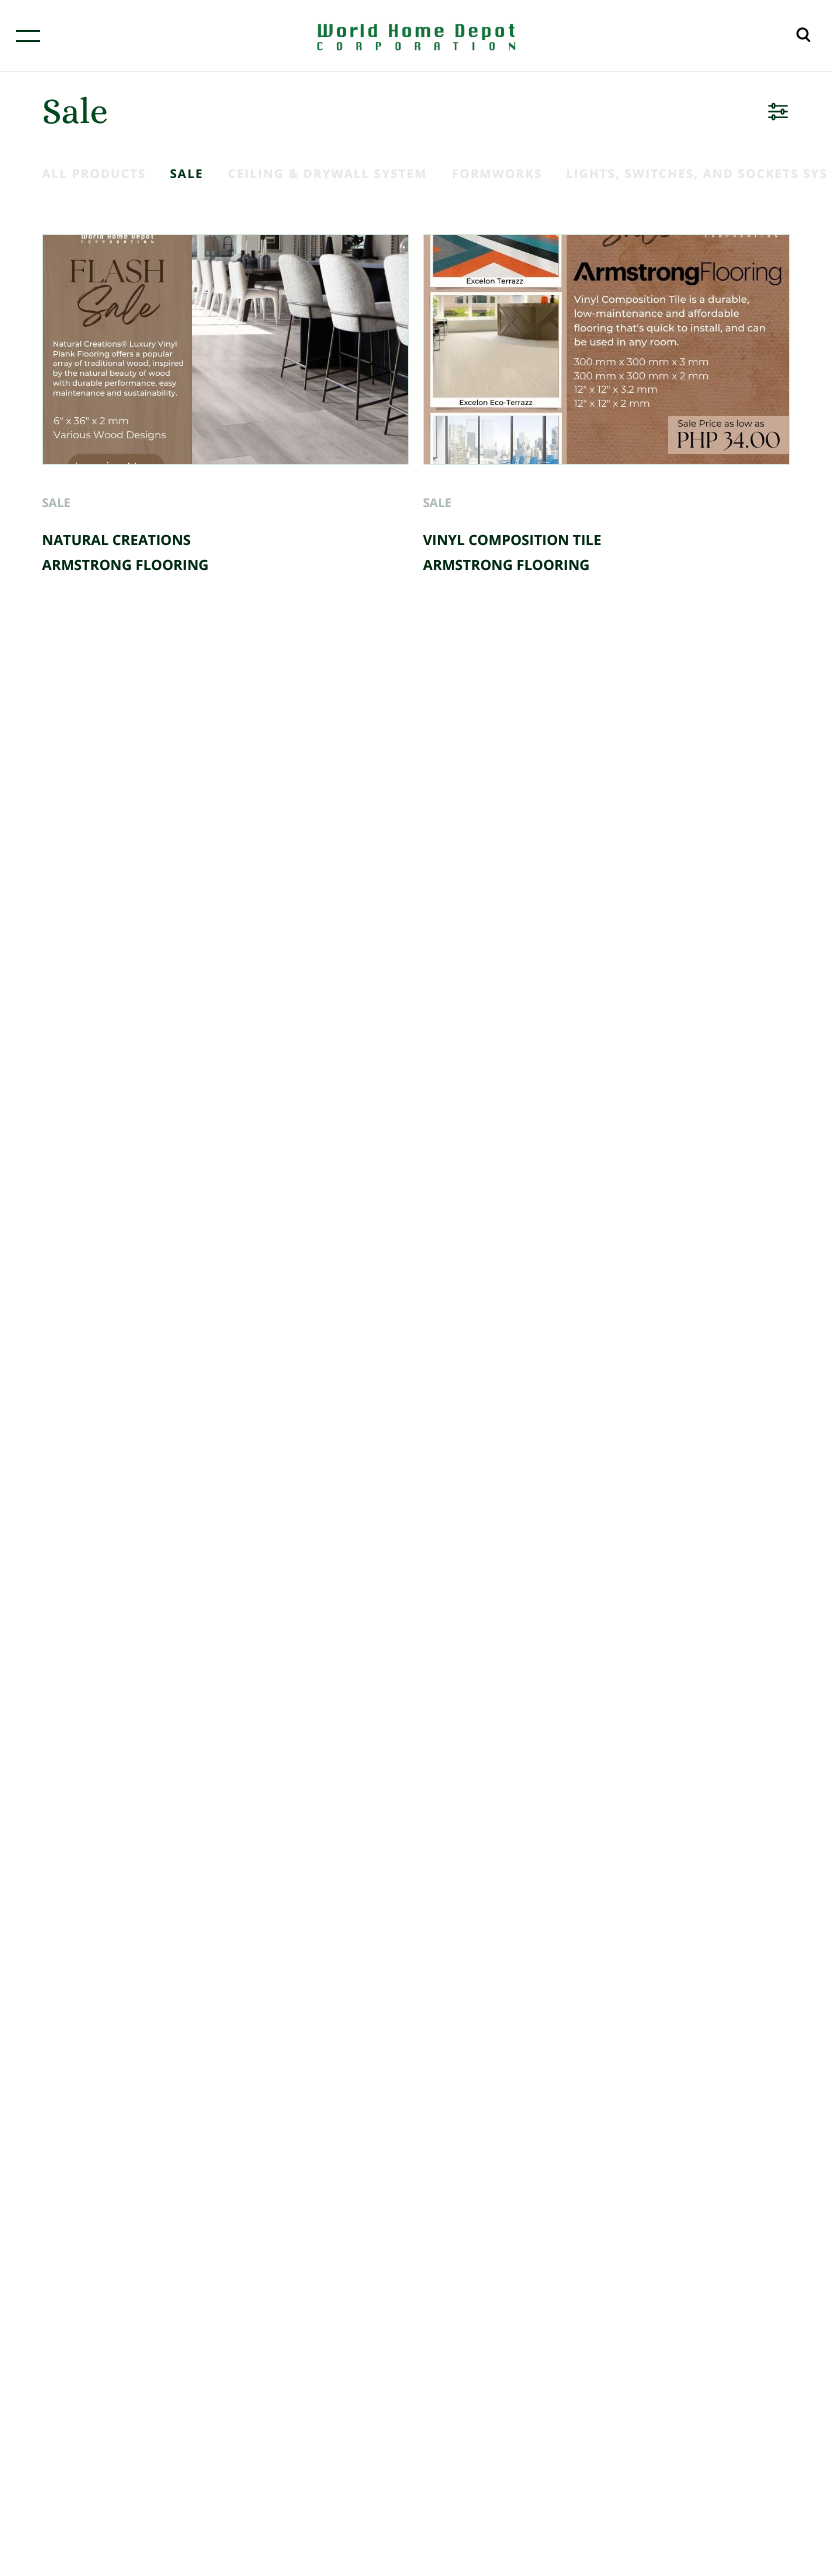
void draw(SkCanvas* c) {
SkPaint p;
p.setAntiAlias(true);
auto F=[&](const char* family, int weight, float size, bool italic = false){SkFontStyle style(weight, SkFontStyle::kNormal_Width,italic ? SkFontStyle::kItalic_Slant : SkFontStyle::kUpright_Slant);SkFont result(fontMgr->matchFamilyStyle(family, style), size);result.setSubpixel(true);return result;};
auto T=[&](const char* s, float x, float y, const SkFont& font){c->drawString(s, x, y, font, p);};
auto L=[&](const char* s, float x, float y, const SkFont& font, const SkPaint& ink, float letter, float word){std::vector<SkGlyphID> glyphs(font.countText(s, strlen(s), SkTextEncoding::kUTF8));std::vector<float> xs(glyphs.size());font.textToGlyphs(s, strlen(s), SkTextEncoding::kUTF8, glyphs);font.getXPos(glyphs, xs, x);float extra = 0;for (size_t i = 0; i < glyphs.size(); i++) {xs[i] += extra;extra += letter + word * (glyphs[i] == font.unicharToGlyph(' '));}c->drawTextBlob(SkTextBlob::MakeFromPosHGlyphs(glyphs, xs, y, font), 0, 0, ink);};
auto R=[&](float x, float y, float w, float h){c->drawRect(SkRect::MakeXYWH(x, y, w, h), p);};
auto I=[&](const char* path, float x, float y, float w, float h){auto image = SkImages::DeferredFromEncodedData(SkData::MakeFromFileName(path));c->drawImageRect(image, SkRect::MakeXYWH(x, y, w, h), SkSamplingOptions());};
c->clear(0xffffffff);
p.setColor(0xffe6f2eb);
R(0,71,832,1);
I("1.png",317,23,199,28);
p.setColor(0xff003315);
R(16,30,24,2);
R(16,40,24,2);
I("2.png",796,27,15,15);
auto f1 = F("Alice",400,36);
p.setColor(0xff00471e);
T("Sale",42,123,f1);
I("3.png",768,102,20,19);
auto f2 = F("Open Sans",700,12);
p.setColor(0xffe5eae7);
L("ALL PRODUCTS",42,178,f2,p,1.25,0);
p.setColor(0xff003315);
L("SALE",170,178,f2,p,1.25,0);
p.setColor(0xffe5eae7);
L("CEILING & DRYWALL SYSTEM",228,178,f2,p,1.25,0);
L("FORMWORKS",452,178,f2,p,1.25,0);
L("LIGHTS, SWITCHES, AND SOCKETS SYS",566,178,f2,p,1.25,0);
p.setStroke(true);
p.setStrokeWidth(1);
p.setColor(0xffd7eadf);
c->drawRect(SkRect::MakeXYWH(42.5,234.5,366,230),p);
I("4.png",43,235,365,229);
p.setStroke(false);
p.setColor(0xffadbbb3);
T("SALE",42,507,f2);
auto f3 = F("Open Sans",700,14);
p.setColor(0xff002911);
T("NATURAL CREATIONS",42,545,f3);
T("ARMSTRONG FLOORING",42,570,f3);
p.setStroke(true);
p.setColor(0xffd7eadf);
c->drawRect(SkRect::MakeXYWH(423.5,234.5,366,230),p);
I("5.png",424,235,365,229);
p.setStroke(false);
p.setColor(0xffadbbb3);
T("SALE",423,507,f2);
p.setColor(0xff002911);
T("VINYL COMPOSITION TILE",423,545,f3);
T("ARMSTRONG FLOORING",423,570,f3);
}
